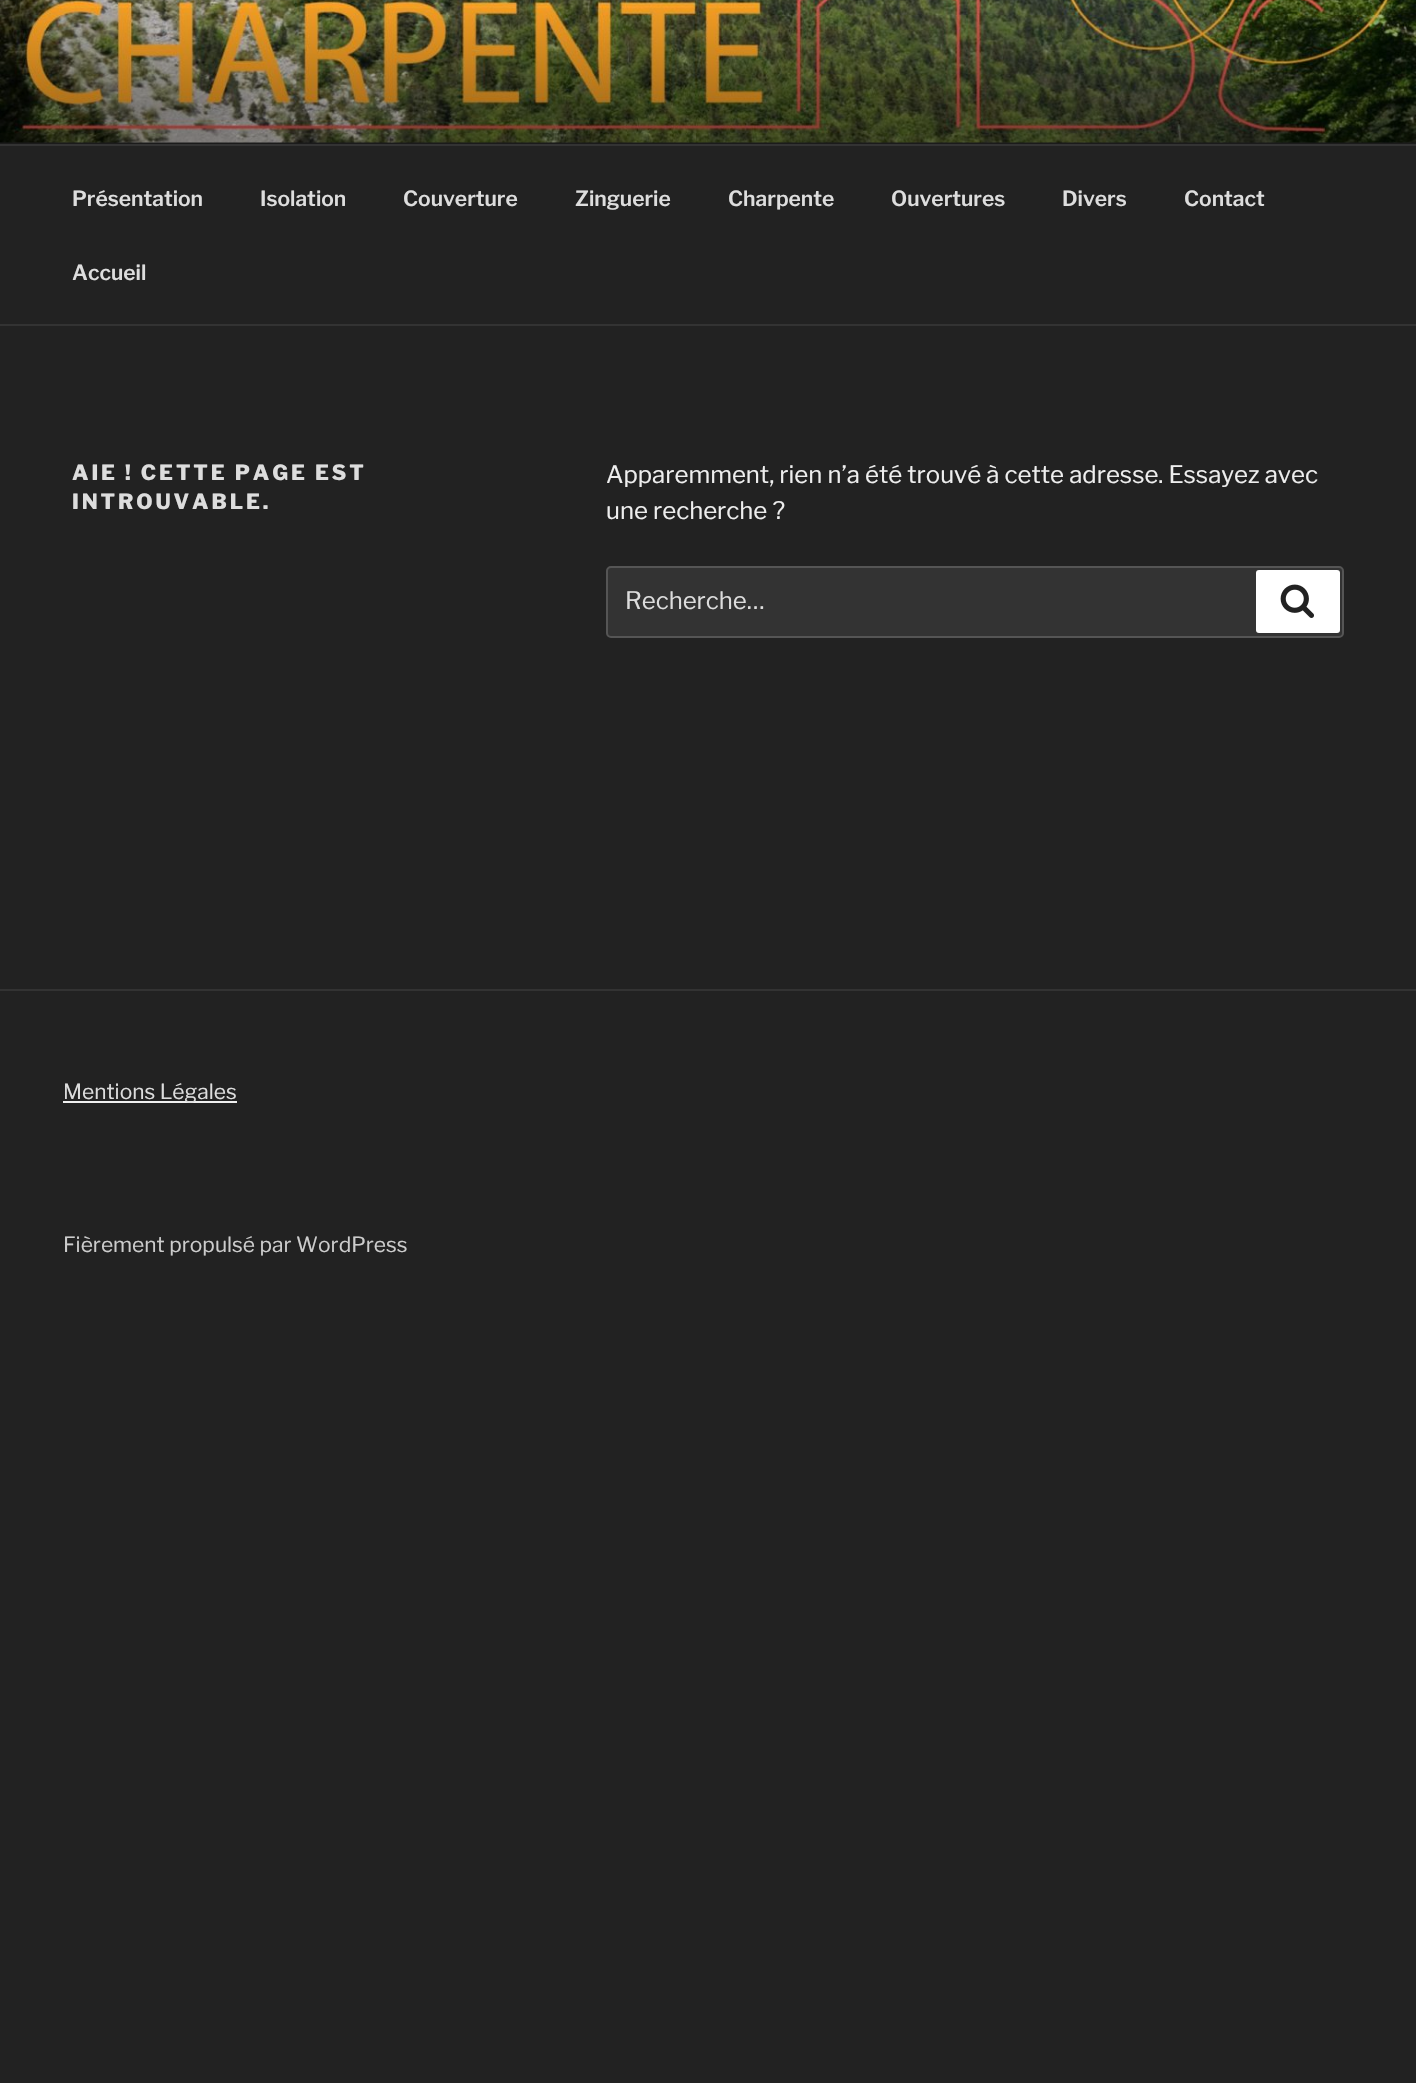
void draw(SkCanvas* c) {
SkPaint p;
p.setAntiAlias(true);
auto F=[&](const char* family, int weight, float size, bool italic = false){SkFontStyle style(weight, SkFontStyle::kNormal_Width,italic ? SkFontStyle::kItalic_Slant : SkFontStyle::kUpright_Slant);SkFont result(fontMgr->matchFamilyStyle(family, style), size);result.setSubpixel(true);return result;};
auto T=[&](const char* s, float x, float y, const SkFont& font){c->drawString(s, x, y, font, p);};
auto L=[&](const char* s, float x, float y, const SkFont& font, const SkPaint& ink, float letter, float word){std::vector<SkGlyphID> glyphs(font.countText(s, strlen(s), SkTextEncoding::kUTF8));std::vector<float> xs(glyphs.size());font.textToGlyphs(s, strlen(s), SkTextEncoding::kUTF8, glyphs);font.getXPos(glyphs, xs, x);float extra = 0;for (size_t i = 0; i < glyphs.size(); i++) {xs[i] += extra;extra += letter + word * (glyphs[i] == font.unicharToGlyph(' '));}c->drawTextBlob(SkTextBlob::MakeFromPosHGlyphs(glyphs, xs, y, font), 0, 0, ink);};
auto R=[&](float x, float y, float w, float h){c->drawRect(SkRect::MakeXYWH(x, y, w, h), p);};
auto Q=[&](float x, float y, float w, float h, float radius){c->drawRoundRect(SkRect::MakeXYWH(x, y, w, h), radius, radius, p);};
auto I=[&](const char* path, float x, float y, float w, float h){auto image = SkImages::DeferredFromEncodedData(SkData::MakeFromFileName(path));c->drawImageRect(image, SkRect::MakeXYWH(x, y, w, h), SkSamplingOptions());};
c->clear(0xff222222);
p.setColor(0xff262626);
R(0,142,1416,2);
I("1.png",0,0,1416,143);
{
const SkColor colors[] = {0x00000000,0x4d000000,0x4d000000};
const float stops[] = {0,.75,1};
const SkPoint ends[] = {{708,0}, {708,144}};
p.setShader(SkGradientShader::MakeLinear(ends, colors, stops, 3, SkTileMode::kClamp));
p.setAlpha(255);
}
R(0,8,1416,136);
p.setShader(nullptr);
p.setColor(0xff333333);
R(0,144,1416,2);
R(0,324,1416,2);
auto f1 = F("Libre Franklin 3",100,21);
p.setColor(0xffdddddd);
T("Présentation",72,206,f1);
T("Isolation",260,206,f1);
T("Couverture",403,206,f1);
T("Zinguerie",575,206,f1);
T("Charpente",728,206,f1);
T("Ouvertures",891,206,f1);
T("Divers",1062,206,f1);
T("Contact",1184,206,f1);
T("Accueil",72,280,f1);
auto f2 = F("Libre Franklin",100,21);
L("AIE ! CETTE PAGE EST",72,480,f2,p,2.9,0);
L("INTROUVABLE.",72,509,f2,p,2.9,0);
auto f3 = F("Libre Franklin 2",100,24);
p.setColor(0xffeeeeee);
T("Apparemment, rien n’a été trouvé à cette adresse. Essayez avec",606,483,f3);
T("une recherche ?",606,519,f3);
p.setColor(0xff333333);
c->drawRoundRect(SkRect::MakeXYWH(607,567,736,70),4,4,p);
p.setStroke(true);
p.setStrokeWidth(2);
p.setColor(0xff555555);
c->drawRoundRect(SkRect::MakeXYWH(607,567,736,70),4,4,p);
p.setStroke(false);
p.setColor(0xffdddddd);
T("Recherche…",625,609,f3);
p.setColor(0xffffffff);
Q(1256,570,84,63,3);
I("2.png",1280,584,34,34);
p.setColor(0xff333333);
R(0,989,1416,2);
p.setColor(0xfff0f0f0);
R(63,1101,174,2);
auto f4 = F("Libre Franklin 2",100,21);
p.setColor(0xffdddddd);
T("Mentions Légales",63,1099,f4);
p.setColor(0xffcccccc);
T("Fièrement propulsé par WordPress",63,1252,f4);
}
